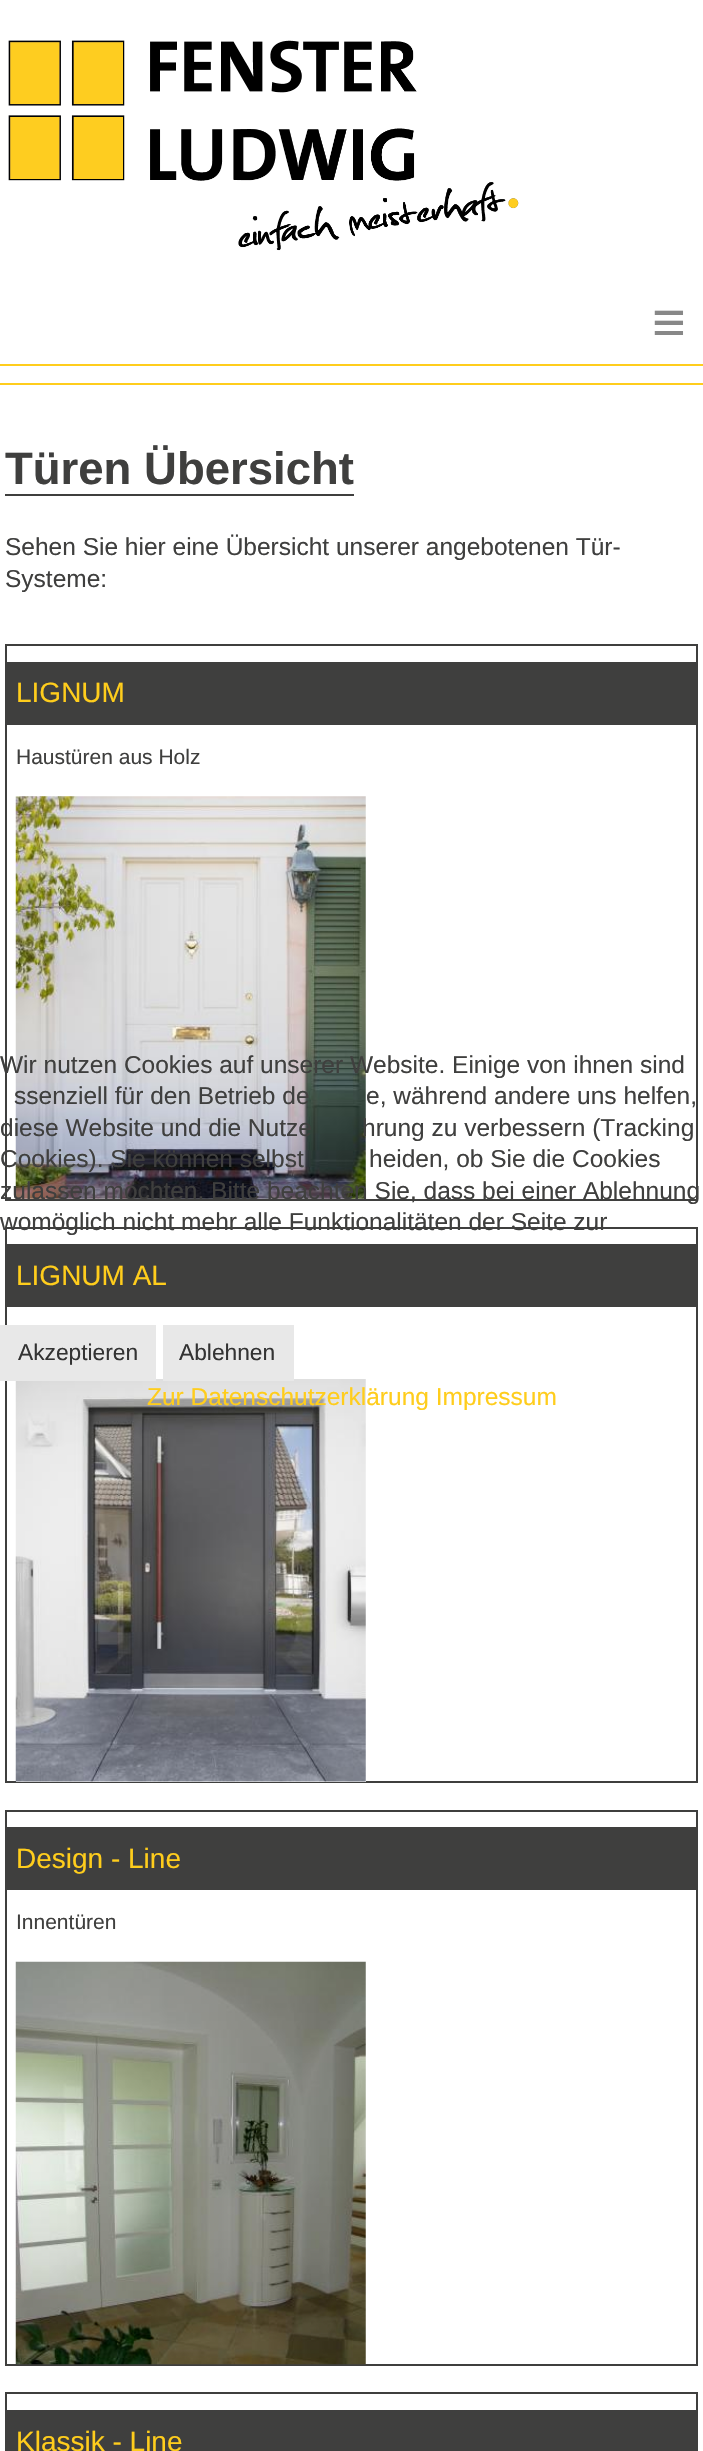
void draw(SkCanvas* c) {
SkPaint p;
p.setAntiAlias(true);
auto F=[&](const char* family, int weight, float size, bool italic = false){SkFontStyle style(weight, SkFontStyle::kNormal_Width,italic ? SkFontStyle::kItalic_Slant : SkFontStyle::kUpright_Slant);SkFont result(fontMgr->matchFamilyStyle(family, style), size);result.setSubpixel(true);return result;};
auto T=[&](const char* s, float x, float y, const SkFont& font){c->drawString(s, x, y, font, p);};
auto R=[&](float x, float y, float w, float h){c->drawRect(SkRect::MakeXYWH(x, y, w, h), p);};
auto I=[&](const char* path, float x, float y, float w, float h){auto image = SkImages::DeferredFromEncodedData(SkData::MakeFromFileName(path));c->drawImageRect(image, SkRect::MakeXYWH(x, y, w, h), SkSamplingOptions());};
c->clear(0xffffffff);
I("1.png",8,40,511,211);
auto f1 = F("Liberation Sans",400,58);
p.setColor(0xff888888);
T("≡",652,342,f1);
p.setColor(0xffffcd1c);
R(0,364,703,2);
R(0,383,703,2);
auto f2 = F("Liberation Sans",700,45.5);
p.setColor(0xff3f3f3e);
T("Türen Übersicht",5,484,f2);
R(5,494,349,2);
auto f3 = F("Liberation Sans",400,24.5);
T("Sehen Sie hier eine Übersicht unserer angebotenen Tür-",5,555,f3);
T("Systeme:",5,587,f3);
p.setStroke(true);
p.setStrokeWidth(2);
c->drawRect(SkRect::MakeXYWH(6,645,691,555),p);
p.setStroke(false);
R(7,662,689,63);
auto f4 = F("Liberation Sans",400,28);
p.setColor(0xffffcd1c);
T("LIGNUM",16,702,f4);
auto f5 = F("Liberation Sans",400,21);
p.setColor(0xff3f3f3e);
T("Haustüren aus Holz",16,764,f5);
I("2.png",15,796,351,403);
p.setStroke(true);
c->drawRect(SkRect::MakeXYWH(6,1228,691,554),p);
p.setStroke(false);
R(7,1244,689,63);
p.setColor(0xffffcd1c);
T("LIGNUM AL",16,1285,f4);
p.setColor(0xffffffff);
R(16,1781,350,1);
I("3.png",15,1379,351,403);
p.setStroke(true);
p.setColor(0xff3f3f3e);
c->drawRect(SkRect::MakeXYWH(6,1811,691,554),p);
p.setStroke(false);
R(7,1827,689,63);
p.setColor(0xffffcd1c);
T("Design - Line",16,1868,f4);
p.setColor(0xff3f3f3e);
T("Innentüren",16,1929,f5);
I("4.png",15,1961,351,404);
p.setStroke(true);
c->drawRect(SkRect::MakeXYWH(6,2393,691,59),p);
p.setStroke(false);
R(7,2410,689,41);
p.setColor(0xffffcd1c);
T("Klassik - Line",16,2451,f4);
p.setColor(0xff3f3f3e);
T("Wir nutzen Cookies auf unserer Website. Einige von ihnen sind",0,1073,f3);
T("ssenziell für den Betrieb de",14,1104,f3);
T("e, während andere uns helfen,",366,1104,f3);
T("diese Website und die Nutze",0,1136,f3);
T("hrung zu verbessern (Tracking",362,1136,f3);
T("Cookies). Sie können selbst",0,1167,f3);
T("heiden, ob Sie die Cookies",369,1167,f3);
T("zulassen möchten. Bitte beachten Sie, dass bei einer Ablehnung",0,1199,f3);
T("womöglich nicht mehr alle Funktionalitäten der Seite zur",0,1230,f3);
p.setColor(0xffe8e8e8);
R(0,1325,156,56);
auto f6 = F("Liberation Sans",400,22.75);
p.setColor(0xff333333);
T("Akzeptieren",18,1360,f6);
p.setColor(0xffe8e8e8);
R(163,1325,131,56);
p.setColor(0xff333333);
T("Ablehnen",179,1360,f6);
p.setColor(0xffffcd1c);
T("Zur Datenschutzerklärung Impressum",147,1405,f3);
}
